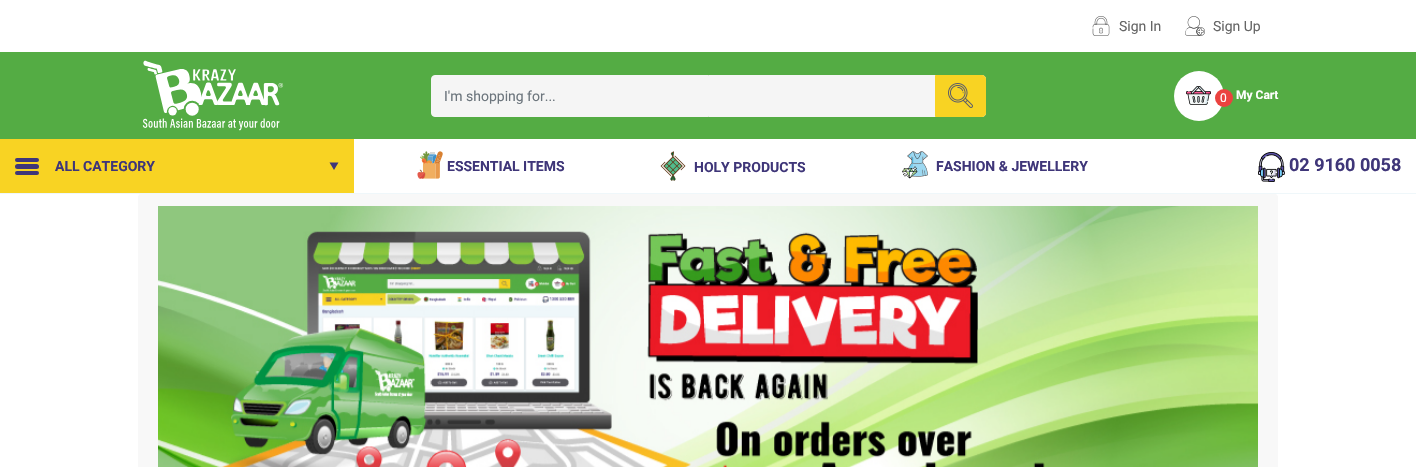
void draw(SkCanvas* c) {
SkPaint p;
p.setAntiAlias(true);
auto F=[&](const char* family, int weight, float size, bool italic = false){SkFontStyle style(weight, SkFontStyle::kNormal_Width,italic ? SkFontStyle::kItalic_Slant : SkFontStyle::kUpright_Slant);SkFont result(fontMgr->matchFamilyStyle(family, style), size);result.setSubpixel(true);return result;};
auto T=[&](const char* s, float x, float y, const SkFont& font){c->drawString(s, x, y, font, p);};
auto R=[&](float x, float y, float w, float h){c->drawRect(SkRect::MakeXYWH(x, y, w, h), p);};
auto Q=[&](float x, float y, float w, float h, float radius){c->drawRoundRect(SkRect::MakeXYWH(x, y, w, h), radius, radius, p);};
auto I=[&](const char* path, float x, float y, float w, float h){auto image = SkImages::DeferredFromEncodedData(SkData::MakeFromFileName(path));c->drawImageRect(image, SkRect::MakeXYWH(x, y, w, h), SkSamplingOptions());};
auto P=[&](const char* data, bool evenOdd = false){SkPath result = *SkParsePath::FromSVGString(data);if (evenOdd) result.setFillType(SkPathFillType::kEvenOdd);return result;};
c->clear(0xffffffff);
p.setColor(0xffeff7fa);
R(0,193,1416,1);
I("1.png",1092,16,18,20);
auto f1 = F("Roboto",400,14);
p.setColor(0xff666666);
T("Sign In",1119,31,f1);
I("2.png",1185,16,20,20);
T("Sign Up",1213,31,f1);
p.setColor(0xff54ac44);
R(0,52,1416,87);
I("3.png",142,60,142,71);
p.setColor(0xfff5f5f5);
c->drawRoundRect(SkRect::MakeXYWH(431.5,75.5,554,41),3.5,3.5,p);
p.setStroke(true);
p.setStrokeWidth(1);
c->drawRoundRect(SkRect::MakeXYWH(431.5,75.5,554,41),3.5,3.5,p);
p.setStroke(false);
p.setColor(0xff6c757d);
T("I'm shopping for...",444,101,f1);
p.setColor(0xfff8d323);
c->drawPath(P("M935.5 75.5h46.5c2 0 3.5 1.5 3.5 3.5v34c0 2-1.5 3.5-3.5 3.5h-46.5z"),p);
p.setStroke(true);
c->drawPath(P("M935.5 75.5h46.5c2 0 3.5 1.5 3.5 3.5v34c0 2-1.5 3.5-3.5 3.5h-46.5z"),p);
I("4.png",948,83,25,25);
p.setStroke(false);
p.setColor(0xffffffff);
c->drawCircle(1199,96,25,p);
I("5.png",1186,86,25,19);
p.setColor(0xffeb423f);
c->drawCircle(1224,98,9,p);
auto f2 = F("Roboto",400,12);
p.setColor(0xffffffff);
T("0",1220,102,f2);
auto f3 = F("Roboto",700,12);
T("My Cart",1236,99,f3);
p.setColor(0xfff8d323);
R(0,139,354,54);
p.setColor(0xff3f3679);
Q(15,158,24,4,2);
Q(15,164,24,5,2.5);
Q(15,171,24,4,2);
auto f4 = F("Roboto",700,14);
T("ALL CATEGORY",55,171,f4);
c->drawPath(P("M334 170l-4.5-7.5h9z"),p);
I("6.png",417,151,26,28);
T("ESSENTIAL ITEMS",447,171,f4);
I("7.png",660,151,26,30);
T("HOLY PRODUCTS",694,172,f4);
I("8.png",902,151,26,28);
T("FASHION & JEWELLERY",936,171,f4);
I("9.png",1258,152,27,30);
auto f5 = F("Roboto",700,18);
T("02 9160 0058",1289,171,f5);
p.setColor(0xfff8f8f8);
c->drawPath(P("M141 194h1134c1.5 0 3 1.5 3 3v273h-1140v-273c0-1.5 1.5-3 3-3z"),p);
I("10.png",158,206,1100,261);
}
